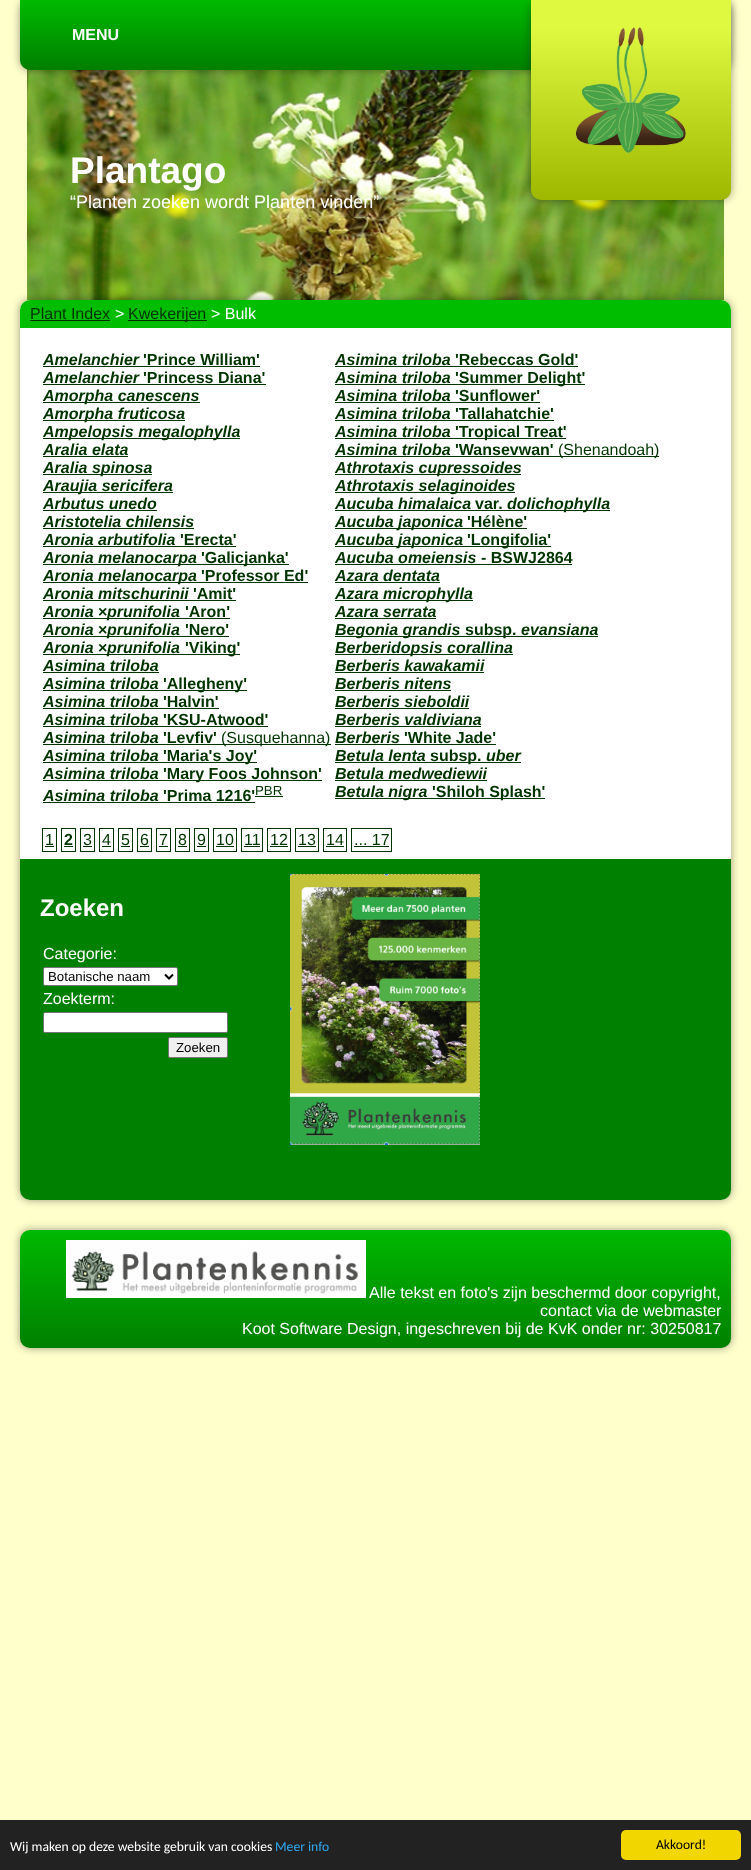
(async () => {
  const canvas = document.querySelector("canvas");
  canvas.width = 751;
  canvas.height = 1870;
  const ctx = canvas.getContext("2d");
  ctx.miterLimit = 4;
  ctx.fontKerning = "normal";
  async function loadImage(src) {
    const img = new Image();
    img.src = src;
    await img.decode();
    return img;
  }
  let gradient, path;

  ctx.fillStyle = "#ffffcc";
  ctx.fillRect(0, 0, 751, 1870);
  ctx.drawImage(await loadImage("img/2.png"), 27, 69, 697, 231);
  ctx.fillStyle = "rgba(0, 0, 0, 0.4)";
  ctx.filter = "blur(4px)";
  ctx.beginPath();
  ctx.roundRect(20, 0, 711, 70, 10);
  ctx.fill();
  ctx.filter = "none";
  gradient = ctx.createLinearGradient(376, 0, 376, 70);
  gradient.addColorStop(0, "#00ba00");
  gradient.addColorStop(1, "#007f00");
  ctx.fillStyle = gradient;
  ctx.beginPath();
  ctx.roundRect(20, 0, 711, 70, [0, 0, 10, 10]);
  ctx.fill();
  ctx.fillStyle = "rgba(0, 0, 0, 0.4)";
  ctx.filter = "blur(4px)";
  ctx.beginPath();
  ctx.roundRect(531, 0, 200, 200, 10);
  ctx.fill();
  ctx.filter = "none";
  gradient = ctx.createLinearGradient(631, 0, 631, 200);
  gradient.addColorStop(0.14, "#dff941");
  gradient.addColorStop(1, "#9eb800");
  ctx.fillStyle = gradient;
  ctx.beginPath();
  ctx.roundRect(531, 0, 200, 200, [0, 0, 10, 10]);
  ctx.fill();
  ctx.drawImage(await loadImage("img/1.png"), 575, 27, 111, 126);
  ctx.fillStyle = "rgba(0, 0, 0, 0.4)";
  ctx.filter = "blur(4px)";
  ctx.beginPath();
  ctx.roundRect(20, 300, 711, 900, 10);
  ctx.fill();
  ctx.filter = "none";
  ctx.fillStyle = "#ffffff";
  ctx.beginPath();
  ctx.roundRect(20, 300, 711, 900, 10);
  ctx.fill();
  ctx.fillStyle = "#00bd00";
  ctx.beginPath();
  ctx.roundRect(20, 300, 711, 28, [10, 10, 0, 0]);
  ctx.fill();
  for (const [x, y, w, h, color] of [
    [30, 320, 80, 1, "#003300"],
    [128, 320, 79, 1, "#003300"],
    [43, 366, 217, 1, "#003300"],
    [43, 384, 223, 1, "#003300"],
    [43, 402, 157, 1, "#003300"],
    [43, 420, 142, 1, "#003300"],
    [43, 438, 197, 1, "#003300"],
    [43, 456, 85, 1, "#003300"],
    [43, 474, 109, 1, "#003300"],
    [43, 492, 130, 1, "#003300"],
    [43, 510, 114, 1, "#003300"],
    [43, 528, 151, 1, "#003300"],
    [43, 546, 193, 1, "#003300"],
    [43, 564, 246, 1, "#003300"],
    [43, 582, 265, 1, "#003300"],
    [43, 600, 193, 1, "#003300"],
    [43, 618, 187, 1, "#003300"],
    [43, 636, 186, 1, "#003300"],
    [43, 654, 197, 1, "#003300"],
    [43, 672, 116, 1, "#003300"],
    [43, 690, 204, 1, "#003300"],
    [43, 708, 176, 1, "#003300"],
    [43, 726, 225, 1, "#003300"],
    [43, 744, 288, 1, "#003300"],
    [43, 762, 214, 1, "#003300"],
    [43, 780, 279, 1, "#003300"],
    [43, 802, 212, 1, "#003300"],
    [255, 796, 28, 1, "#003300"],
    [335, 366, 243, 1, "#003300"],
    [335, 384, 250, 1, "#003300"],
    [335, 402, 205, 1, "#003300"],
    [335, 420, 219, 1, "#003300"],
    [335, 438, 231, 1, "#003300"],
    [335, 456, 324, 1, "#003300"],
    [335, 474, 186, 1, "#003300"],
    [335, 492, 180, 1, "#003300"],
    [335, 510, 275, 1, "#003300"],
    [335, 528, 192, 1, "#003300"],
    [335, 546, 216, 1, "#003300"],
    [335, 564, 237, 1, "#003300"],
    [335, 582, 105, 1, "#003300"],
    [335, 600, 138, 1, "#003300"],
    [335, 618, 101, 1, "#003300"],
    [335, 636, 263, 1, "#003300"],
    [335, 654, 178, 1, "#003300"],
    [335, 672, 149, 1, "#003300"],
    [335, 690, 116, 1, "#003300"],
    [335, 708, 134, 1, "#003300"],
    [335, 726, 146, 1, "#003300"],
    [335, 744, 161, 1, "#003300"],
    [335, 762, 186, 1, "#003300"],
    [335, 780, 152, 1, "#003300"],
    [335, 798, 210, 1, "#003300"],
  ]) {
    ctx.fillStyle = color;
    ctx.fillRect(x, y, w, h);
  }
  ctx.strokeStyle = "#003300";
  ctx.strokeRect(42.5, 828.5, 14, 23);
  ctx.fillRect(45, 846, 9, 1);
  ctx.strokeRect(61.5, 828.5, 14, 23);
  ctx.fillRect(64, 846, 9, 1);
  ctx.strokeRect(80.5, 828.5, 14, 23);
  ctx.fillRect(83, 846, 9, 1);
  ctx.strokeRect(99.5, 828.5, 14, 23);
  ctx.fillRect(102, 846, 9, 1);
  ctx.strokeRect(118.5, 828.5, 14, 23);
  ctx.fillRect(121, 846, 9, 1);
  ctx.strokeRect(137.5, 828.5, 14, 23);
  ctx.fillRect(140, 846, 9, 1);
  ctx.strokeRect(156.5, 828.5, 14, 23);
  ctx.fillRect(159, 846, 9, 1);
  ctx.strokeRect(175.5, 828.5, 14, 23);
  ctx.fillRect(178, 846, 9, 1);
  ctx.strokeRect(194.5, 828.5, 14, 23);
  ctx.fillRect(197, 846, 9, 1);
  ctx.strokeRect(213.5, 828.5, 23, 23);
  ctx.fillRect(216, 846, 18, 1);
  ctx.strokeRect(241.5, 828.5, 21, 23);
  ctx.fillRect(244, 846, 16, 1);
  ctx.strokeRect(267.5, 828.5, 23, 23);
  ctx.fillRect(270, 846, 18, 1);
  ctx.strokeRect(295.5, 828.5, 23, 23);
  ctx.fillRect(298, 846, 18, 1);
  ctx.strokeRect(323.5, 828.5, 23, 23);
  ctx.fillRect(326, 846, 18, 1);
  ctx.strokeRect(351.5, 828.5, 40, 23);
  ctx.fillRect(354, 846, 35, 1);
  ctx.fillStyle = "#008000";
  ctx.beginPath();
  ctx.roundRect(20, 859, 711, 341, [0, 0, 10, 10]);
  ctx.fill();
  ctx.fillStyle = "#ffffff";
  ctx.beginPath();
  ctx.roundRect(43.5, 967.5, 134, 18, 1.5);
  ctx.fill();
  ctx.strokeStyle = "#767676";
  ctx.stroke();
  path = new Path2D("M165 974.5L169 978.5L173 974.5");
  ctx.strokeStyle = "#000000";
  ctx.lineWidth = 2;
  ctx.stroke(path);
  ctx.beginPath();
  ctx.roundRect(43.5, 1012.5, 184, 20, 1.5);
  ctx.fill();
  ctx.strokeStyle = "#767676";
  ctx.lineWidth = 1;
  ctx.stroke();
  ctx.fillStyle = "#efefef";
  ctx.beginPath();
  ctx.roundRect(168.5, 1037.5, 59, 20, 1.5);
  ctx.fill();
  ctx.stroke();
  ctx.drawImage(await loadImage("img/3.png"), 290, 874, 190, 271);
  ctx.fillStyle = "rgba(0, 0, 0, 0.4)";
  ctx.filter = "blur(4px)";
  ctx.beginPath();
  ctx.roundRect(20, 1230, 711, 118, 10);
  ctx.fill();
  ctx.filter = "none";
  gradient = ctx.createLinearGradient(376, 1230, 376, 1348);
  gradient.addColorStop(0, "#00b800");
  gradient.addColorStop(1, "#008000");
  ctx.fillStyle = gradient;
  ctx.beginPath();
  ctx.roundRect(20, 1230, 711, 118, 10);
  ctx.fill();
  ctx.drawImage(await loadImage("img/4.png"), 66, 1240, 300, 58);
  ctx.fillStyle = "#222222";
  ctx.fillRect(0, 1820, 751, 50);
  ctx.fillStyle = "#f1d600";
  ctx.beginPath();
  ctx.roundRect(621, 1830, 120, 30, 5);
  ctx.fill();
  ctx.font = "bold 16px Liberation Sans";
  ctx.fillStyle = "#ffffff";
  ctx.fillText("MENU", 72, 40);
  ctx.font = "bold 37px Liberation Sans";
  ctx.fillText("Plantago", 70, 183);
  ctx.font = "18px Liberation Sans";
  ctx.fillText("“Planten zoeken wordt Planten vinden”", 70, 208);
  ctx.font = "16px Liberation Sans";
  ctx.fillStyle = "#003300";
  ctx.fillText("Plant Index", 30, 319);
  ctx.fillStyle = "#ffffff";
  ctx.fillText(">", 115, 319);
  ctx.fillStyle = "#003300";
  ctx.fillText("Kwekerijen", 128, 319);
  ctx.fillStyle = "#ffffff";
  ctx.fillText("> Bulk", 211, 319);
  ctx.font = "italic bold 16px Liberation Sans";
  ctx.fillStyle = "#003300";
  ctx.fillText("Amelanchier", 43, 365);
  ctx.font = "bold 16px Liberation Sans";
  ctx.fillText("'Prince William'", 143, 365);
  ctx.font = "italic bold 16px Liberation Sans";
  ctx.fillText("Amelanchier", 43, 383);
  ctx.font = "bold 16px Liberation Sans";
  ctx.fillText("'Princess Diana'", 143, 383);
  ctx.font = "italic bold 16px Liberation Sans";
  for (const [text, x, y] of [
    ["Amorpha canescens", 43, 401],
    ["Amorpha fruticosa", 43, 419],
    ["Ampelopsis megalophylla", 43, 437],
    ["Aralia elata", 43, 455],
    ["Aralia spinosa", 43, 473],
    ["Araujia sericifera", 43, 491],
    ["Arbutus unedo", 43, 509],
    ["Aristotelia chilensis", 43, 527],
    ["Aronia arbutifolia", 43, 545],
  ]) {
    ctx.fillText(text, x, y);
  }
  ctx.font = "bold 16px Liberation Sans";
  ctx.fillText("'Erecta'", 180, 545);
  ctx.font = "italic bold 16px Liberation Sans";
  ctx.fillText("Aronia melanocarpa", 43, 563);
  ctx.font = "bold 16px Liberation Sans";
  ctx.fillText("'Galicjanka'", 201, 563);
  ctx.font = "italic bold 16px Liberation Sans";
  ctx.fillText("Aronia melanocarpa", 43, 581);
  ctx.font = "bold 16px Liberation Sans";
  ctx.fillText("'Professor Ed'", 201, 581);
  ctx.font = "italic bold 16px Liberation Sans";
  ctx.fillText("Aronia mitschurinii", 43, 599);
  ctx.font = "bold 16px Liberation Sans";
  ctx.fillText("'Amit'", 193, 599);
  ctx.font = "italic bold 16px Liberation Sans";
  ctx.fillText("Aronia", 43, 617);
  ctx.font = "bold 16px Liberation Sans";
  ctx.fillText("×", 98, 617);
  ctx.font = "italic bold 16px Liberation Sans";
  ctx.fillText("prunifolia", 107, 617);
  ctx.font = "bold 16px Liberation Sans";
  ctx.fillText("'Aron'", 185, 617);
  ctx.font = "italic bold 16px Liberation Sans";
  ctx.fillText("Aronia", 43, 635);
  ctx.font = "bold 16px Liberation Sans";
  ctx.fillText("×", 98, 635);
  ctx.font = "italic bold 16px Liberation Sans";
  ctx.fillText("prunifolia", 107, 635);
  ctx.font = "bold 16px Liberation Sans";
  ctx.fillText("'Nero'", 185, 635);
  ctx.font = "italic bold 16px Liberation Sans";
  ctx.fillText("Aronia", 43, 653);
  ctx.font = "bold 16px Liberation Sans";
  ctx.fillText("×", 98, 653);
  ctx.font = "italic bold 16px Liberation Sans";
  ctx.fillText("prunifolia", 107, 653);
  ctx.font = "bold 16px Liberation Sans";
  ctx.fillText("'Viking'", 185, 653);
  ctx.font = "italic bold 16px Liberation Sans";
  ctx.fillText("Asimina triloba", 43, 671);
  ctx.fillText("Asimina triloba", 43, 689);
  ctx.font = "bold 16px Liberation Sans";
  ctx.fillText("'Allegheny'", 163, 689);
  ctx.font = "italic bold 16px Liberation Sans";
  ctx.fillText("Asimina triloba", 43, 707);
  ctx.font = "bold 16px Liberation Sans";
  ctx.fillText("'Halvin'", 163, 707);
  ctx.font = "italic bold 16px Liberation Sans";
  ctx.fillText("Asimina triloba", 43, 725);
  ctx.font = "bold 16px Liberation Sans";
  ctx.fillText("'KSU-Atwood'", 163, 725);
  ctx.font = "italic bold 16px Liberation Sans";
  ctx.fillText("Asimina triloba", 43, 743);
  ctx.font = "bold 16px Liberation Sans";
  ctx.fillText("'Levfiv'", 163, 743);
  ctx.font = "16px Liberation Sans";
  ctx.fillText("(Susquehanna)", 221, 743);
  ctx.font = "italic bold 16px Liberation Sans";
  ctx.fillText("Asimina triloba", 43, 761);
  ctx.font = "bold 16px Liberation Sans";
  ctx.fillText("'Maria's Joy'", 163, 761);
  ctx.font = "italic bold 16px Liberation Sans";
  ctx.fillText("Asimina triloba", 43, 779);
  ctx.font = "bold 16px Liberation Sans";
  ctx.fillText("'Mary Foos Johnson'", 163, 779);
  ctx.font = "italic bold 16px Liberation Sans";
  ctx.fillText("Asimina triloba", 43, 801);
  ctx.font = "bold 16px Liberation Sans";
  ctx.fillText("'Prima 1216'", 163, 801);
  ctx.font = "13.25px Liberation Sans";
  ctx.fillText("PBR", 255, 795);
  ctx.font = "italic bold 16px Liberation Sans";
  ctx.fillText("Asimina triloba", 335, 365);
  ctx.font = "bold 16px Liberation Sans";
  ctx.fillText("'Rebeccas Gold'", 455, 365);
  ctx.font = "italic bold 16px Liberation Sans";
  ctx.fillText("Asimina triloba", 335, 383);
  ctx.font = "bold 16px Liberation Sans";
  ctx.fillText("'Summer Delight'", 455, 383);
  ctx.font = "italic bold 16px Liberation Sans";
  ctx.fillText("Asimina triloba", 335, 401);
  ctx.font = "bold 16px Liberation Sans";
  ctx.fillText("'Sunflower'", 455, 401);
  ctx.font = "italic bold 16px Liberation Sans";
  ctx.fillText("Asimina triloba", 335, 419);
  ctx.font = "bold 16px Liberation Sans";
  ctx.fillText("'Tallahatchie'", 455, 419);
  ctx.font = "italic bold 16px Liberation Sans";
  ctx.fillText("Asimina triloba", 335, 437);
  ctx.font = "bold 16px Liberation Sans";
  ctx.fillText("'Tropical Treat'", 455, 437);
  ctx.font = "italic bold 16px Liberation Sans";
  ctx.fillText("Asimina triloba", 335, 455);
  ctx.font = "bold 16px Liberation Sans";
  ctx.fillText("'Wansevwan'", 455, 455);
  ctx.font = "16px Liberation Sans";
  ctx.fillText("(Shenandoah)", 558, 455);
  ctx.font = "italic bold 16px Liberation Sans";
  for (const [text, x, y] of [
    ["Athrotaxis cupressoides", 335, 473],
    ["Athrotaxis selaginoides", 335, 491],
    ["Aucuba himalaica", 335, 509],
  ]) {
    ctx.fillText(text, x, y);
  }
  ctx.font = "bold 16px Liberation Sans";
  ctx.fillText("var.", 475, 509);
  ctx.font = "italic bold 16px Liberation Sans";
  ctx.fillText("dolichophylla", 507, 509);
  ctx.fillText("Aucuba japonica", 335, 527);
  ctx.font = "bold 16px Liberation Sans";
  ctx.fillText("'Hélène'", 467, 527);
  ctx.font = "italic bold 16px Liberation Sans";
  ctx.fillText("Aucuba japonica", 335, 545);
  ctx.font = "bold 16px Liberation Sans";
  ctx.fillText("'Longifolia'", 467, 545);
  ctx.font = "italic bold 16px Liberation Sans";
  ctx.fillText("Aucuba omeiensis", 335, 563);
  ctx.font = "bold 16px Liberation Sans";
  ctx.fillText("- BSWJ2864", 481, 563);
  ctx.font = "italic bold 16px Liberation Sans";
  for (const [text, x, y] of [
    ["Azara dentata", 335, 581],
    ["Azara microphylla", 335, 599],
    ["Azara serrata", 335, 617],
    ["Begonia grandis", 335, 635],
  ]) {
    ctx.fillText(text, x, y);
  }
  ctx.font = "bold 16px Liberation Sans";
  ctx.fillText("subsp.", 465, 635);
  ctx.font = "italic bold 16px Liberation Sans";
  for (const [text, x, y] of [
    ["evansiana", 521, 635],
    ["Berberidopsis corallina", 335, 653],
    ["Berberis kawakamii", 335, 671],
    ["Berberis nitens", 335, 689],
    ["Berberis sieboldii", 335, 707],
    ["Berberis valdiviana", 335, 725],
    ["Berberis", 335, 743],
  ]) {
    ctx.fillText(text, x, y);
  }
  ctx.font = "bold 16px Liberation Sans";
  ctx.fillText("'White Jade'", 404, 743);
  ctx.font = "italic bold 16px Liberation Sans";
  ctx.fillText("Betula lenta", 335, 761);
  ctx.font = "bold 16px Liberation Sans";
  ctx.fillText("subsp.", 430, 761);
  ctx.font = "italic bold 16px Liberation Sans";
  for (const [text, x, y] of [
    ["uber", 486, 761],
    ["Betula medwediewii", 335, 779],
    ["Betula nigra", 335, 797],
  ]) {
    ctx.fillText(text, x, y);
  }
  ctx.font = "bold 16px Liberation Sans";
  ctx.fillText("'Shiloh Splash'", 432, 797);
  ctx.font = "16px Liberation Sans";
  ctx.fillText("1", 45, 845);
  ctx.font = "bold 16px Liberation Sans";
  ctx.fillText("2", 64, 845);
  ctx.font = "16px Liberation Sans";
  for (const [text, x, y] of [
    ["3", 83, 845],
    ["4", 102, 845],
    ["5", 121, 845],
    ["6", 140, 845],
    ["7", 159, 845],
    ["8", 178, 845],
    ["9", 197, 845],
    ["10", 216, 845],
    ["11", 244, 845],
    ["12", 270, 845],
    ["13", 298, 845],
    ["14", 326, 845],
    ["... 17", 354, 845],
  ]) {
    ctx.fillText(text, x, y);
  }
  ctx.font = "bold 24px Liberation Sans";
  ctx.fillStyle = "#ffffff";
  ctx.fillText("Zoeken", 40, 916);
  ctx.font = "16px Liberation Sans";
  ctx.fillText("Categorie:", 43, 959);
  ctx.font = "13.25px Liberation Sans";
  ctx.fillStyle = "#000000";
  ctx.fillText("Botanische naam", 48, 981);
  ctx.font = "16px Liberation Sans";
  ctx.fillStyle = "#ffffff";
  ctx.fillText("Zoekterm:", 43, 1004);
  ctx.font = "13.25px Liberation Sans";
  ctx.fillStyle = "#000000";
  ctx.fillText("Zoeken", 176, 1052);
  ctx.font = "16px Liberation Sans";
  ctx.fillStyle = "#ffffff";
  for (const [text, x, y] of [
    ["Alle tekst en foto's zijn beschermd door copyright,", 369, 1298],
    ["contact via de webmaster", 540, 1316],
    ["Koot Software Design, ingeschreven bij de KvK onder nr: 30250817", 242, 1334],
  ]) {
    ctx.fillText(text, x, y);
  }
  ctx.font = "13.6px Carlito";
  ctx.fillText("Wij maken op deze website gebruik van cookies", 10, 1851);
  ctx.fillStyle = "#31a8f0";
  ctx.fillText("Meer info", 275, 1851);
  ctx.fillStyle = "#000000";
  ctx.fillText("Akkoord!", 656, 1849);
})();
